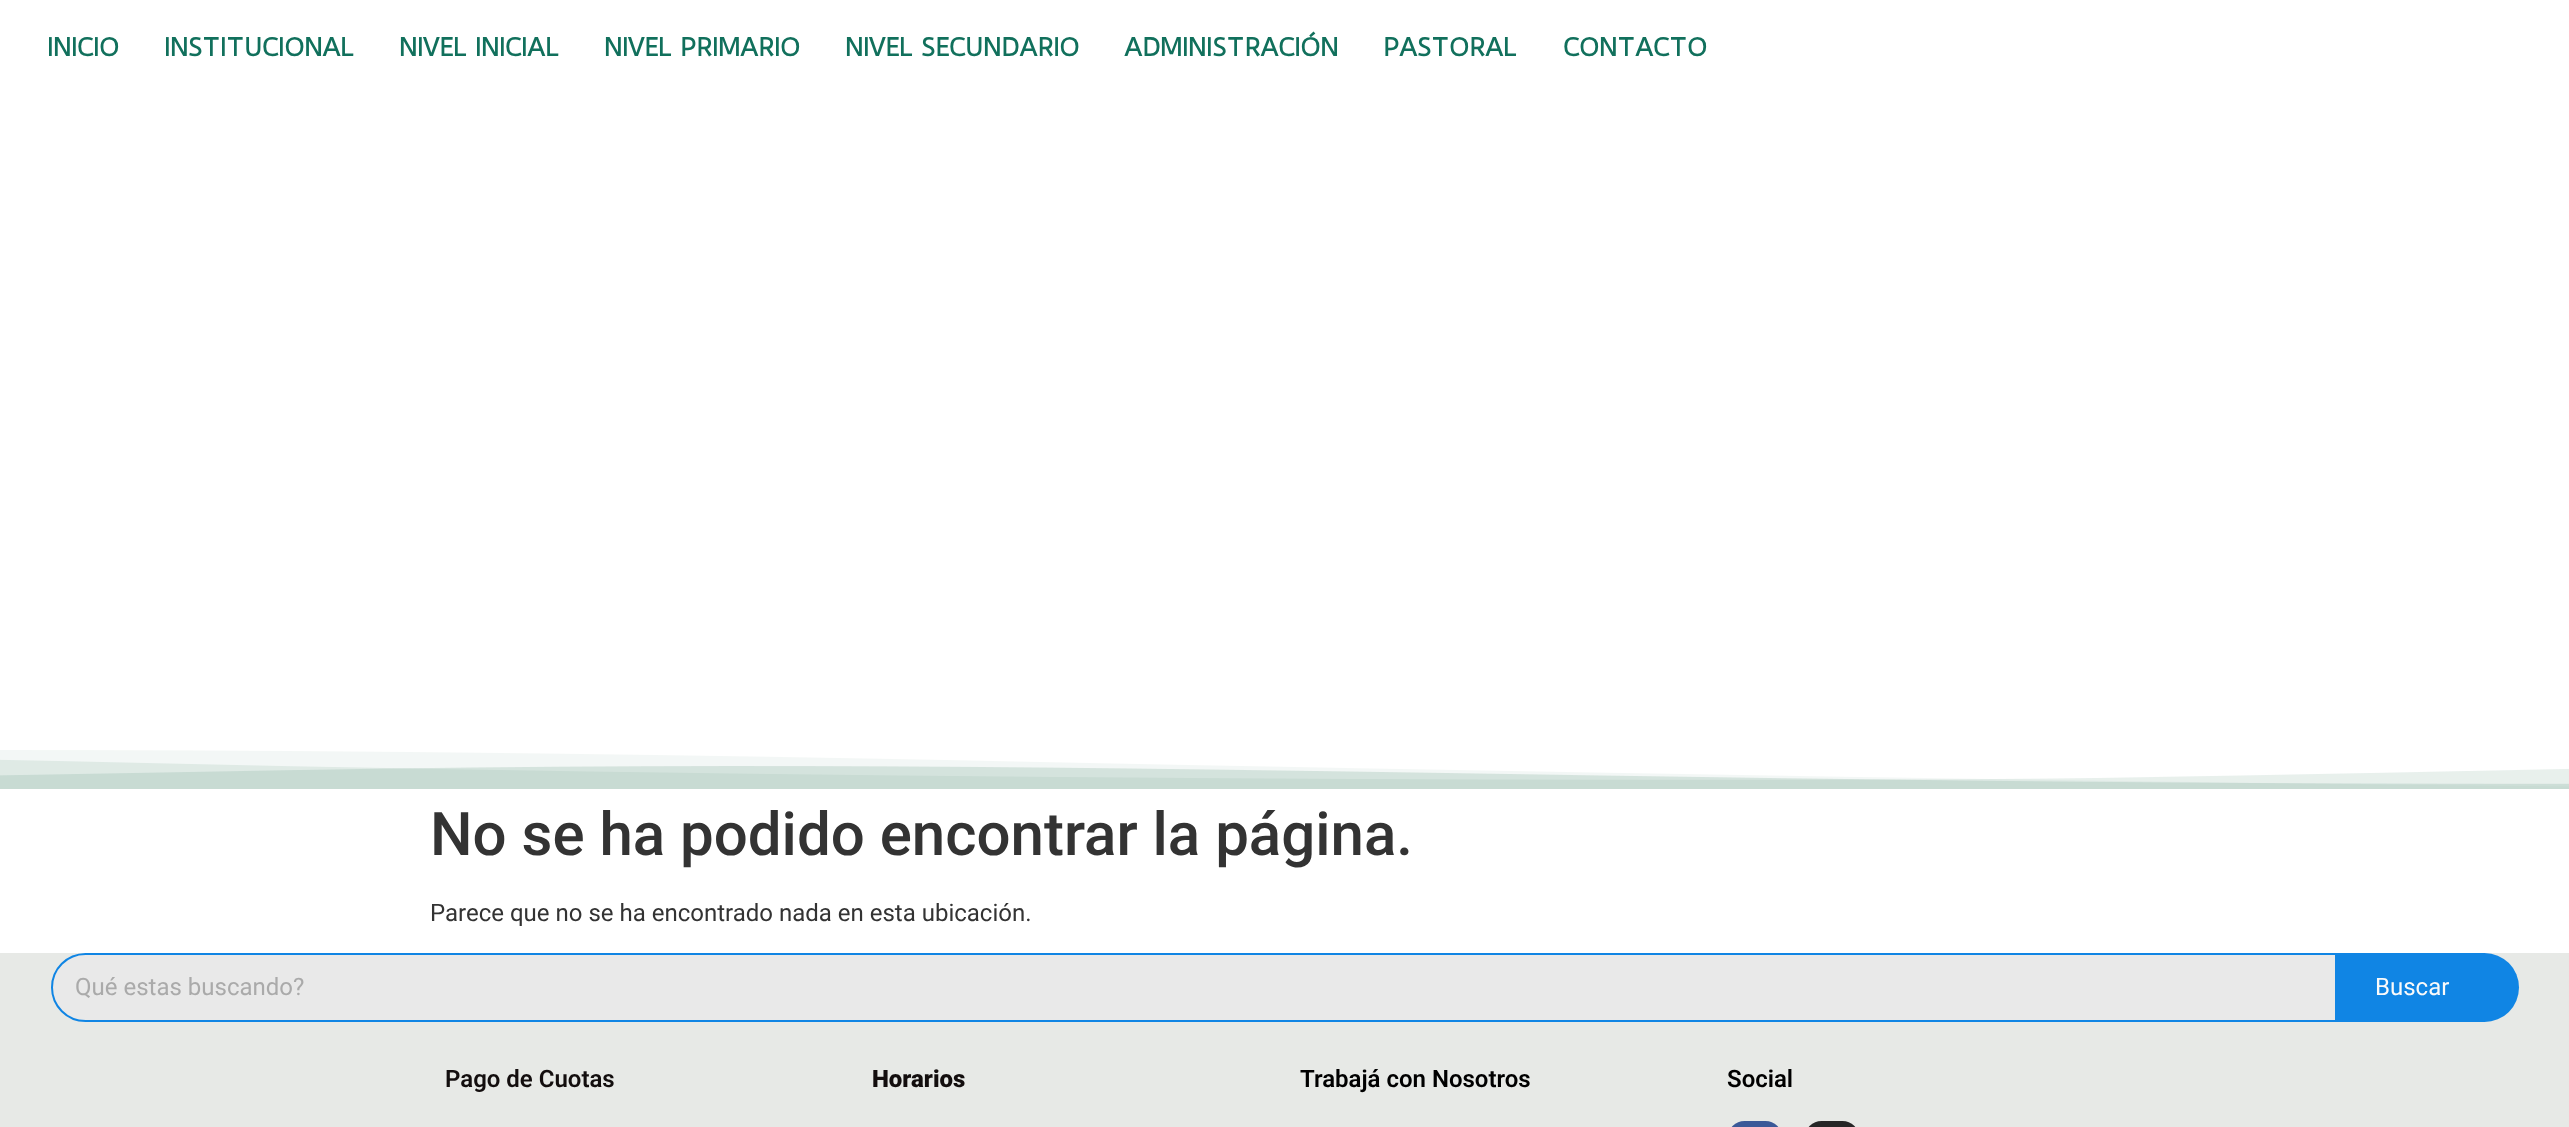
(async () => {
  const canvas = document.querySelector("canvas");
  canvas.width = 2569;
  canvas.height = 1127;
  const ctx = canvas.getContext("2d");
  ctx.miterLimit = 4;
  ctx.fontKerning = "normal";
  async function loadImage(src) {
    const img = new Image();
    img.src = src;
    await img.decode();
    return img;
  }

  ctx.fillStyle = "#ffffff";
  ctx.fillRect(0, 0, 2569, 1127);
  ctx.drawImage(await loadImage("img/1.png"), 0, 750, 2569, 39);
  ctx.fillStyle = "#e7e9e6";
  ctx.fillRect(0, 953, 2569, 174);
  ctx.fillStyle = "#e9e9e9";
  ctx.beginPath();
  ctx.roundRect(52, 954, 2284, 67, [33.5, 0, 0, 33.5]);
  ctx.fill();
  ctx.strokeStyle = "#1085e4";
  ctx.lineWidth = 2;
  ctx.stroke();
  ctx.fillStyle = "#1085e4";
  ctx.beginPath();
  ctx.roundRect(2337, 953, 182, 69, [0, 34.5, 34.5, 0]);
  ctx.fill();
  ctx.fillStyle = "#3b5998";
  ctx.beginPath();
  ctx.roundRect(1728, 1121, 54, 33, 27);
  ctx.fill();
  ctx.fillStyle = "#262626";
  ctx.beginPath();
  ctx.roundRect(1805, 1121, 54, 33, 27);
  ctx.fill();
  ctx.font = "bold 24px Duru Sans";
  ctx.fillStyle = "#11705c";
  for (const [text, x, y] of [
    ["INICIO", 47, 56],
    ["INSTITUCIONAL", 164, 56],
    ["NIVEL INICIAL", 399, 56],
    ["NIVEL PRIMARIO", 604, 56],
    ["NIVEL SECUNDARIO", 845, 56],
    ["ADMINISTRACIÓN", 1124, 56],
    ["PASTORAL", 1383, 56],
    ["CONTACTO", 1563, 56],
  ]) {
    ctx.fillText(text, x, y);
  }
  ctx.font = "500 60px Roboto";
  ctx.fillStyle = "#333333";
  ctx.fillText("No se ha podido encontrar la página.", 430, 855);
  ctx.font = "24px Roboto";
  ctx.fillText("Parece que no se ha encontrado nada en esta ubicación.", 430, 921);
  ctx.fillStyle = "#aaaaaa";
  ctx.fillText("Qué estas buscando?", 75, 995);
  ctx.fillStyle = "#fafafa";
  ctx.fillText("Buscar", 2375, 995);
  ctx.font = "600 24px Roboto";
  ctx.fillStyle = "#130e0e";
  ctx.fillText("Pago de Cuotas", 445, 1087);
  ctx.font = "900 24px Roboto";
  ctx.fillText("Horarios", 872, 1087);
  ctx.font = "600 24px Roboto";
  ctx.fillStyle = "#000000";
  ctx.fillText("Trabajá con Nosotros", 1300, 1087);
  ctx.fillText("Social", 1727, 1087);
})();
